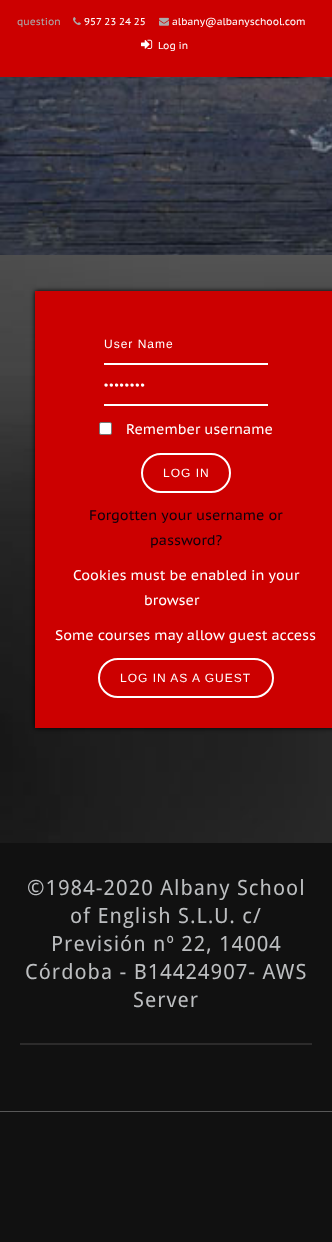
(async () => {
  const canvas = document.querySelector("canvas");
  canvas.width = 332;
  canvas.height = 1242;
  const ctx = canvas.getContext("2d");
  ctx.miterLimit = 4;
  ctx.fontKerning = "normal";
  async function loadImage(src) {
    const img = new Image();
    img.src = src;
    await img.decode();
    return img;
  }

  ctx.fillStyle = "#ffffff";
  ctx.fillRect(0, 0, 332, 1242);
  ctx.drawImage(await loadImage("img/1.png"), 0, 255, 332, 588);
  ctx.fillStyle = "#cc0000";
  ctx.fillRect(0, 0, 332, 77);
  ctx.drawImage(await loadImage("img/2.png"), 73, 17, 8, 8);
  ctx.drawImage(await loadImage("img/3.png"), 159, 17, 10, 9);
  ctx.drawImage(await loadImage("img/4.png"), 141, 39, 12, 10);
  ctx.drawImage(await loadImage("img/5.png"), 0, 77, 332, 178);
  ctx.fillStyle = "#000000";
  ctx.filter = "blur(2.5px)";
  ctx.beginPath();
  ctx.rect(35, 291, 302, 437);
  ctx.fill();
  ctx.filter = "none";
  for (const [x, y, w, h, color] of [
    [35, 291, 297, 437, "#cc0000"],
    [104, 363, 164, 2, "#ffffff"],
    [104, 404, 164, 2, "#ffffff"],
  ]) {
    ctx.fillStyle = color;
    ctx.fillRect(x, y, w, h);
  }
  ctx.beginPath();
  ctx.roundRect(99.5, 422.5, 12, 12, 1.5);
  ctx.fill();
  ctx.strokeStyle = "#767676";
  ctx.stroke();
  ctx.beginPath();
  ctx.roundRect(142, 454, 88, 38, 19);
  ctx.strokeStyle = "#ffffff";
  ctx.lineWidth = 2;
  ctx.stroke();
  ctx.beginPath();
  ctx.roundRect(99, 659, 174, 38, 19);
  ctx.stroke();
  for (const [x, y, w, h, color] of [
    [0, 843, 332, 268, "#111111"],
    [20, 1043, 292, 2, "#2c2b2b"],
    [0, 1112, 332, 130, "#111111"],
    [0, 1111, 332, 1, "#585858"],
  ]) {
    ctx.fillStyle = color;
    ctx.fillRect(x, y, w, h);
  }
  ctx.font = "10px PT Sans Caption";
  ctx.fillStyle = "#ababab";
  ctx.fillText("question", 17, 25);
  ctx.fillStyle = "#ffffff";
  for (const [text, x, y] of [
    ["957 23 24 25", 84, 25],
    ["albany@albanyschool.com", 172, 25],
    ["Log in", 158, 49],
  ]) {
    ctx.fillText(text, x, y);
  }
  ctx.letterSpacing = "1px";
  ctx.font = "12px Liberation Sans";
  ctx.fillText("User Name", 104, 348);
  ctx.fillText("••••••••", 104, 389);
  ctx.letterSpacing = "0px";
  ctx.font = "14px PT Sans Caption";
  ctx.fillText("Remember username", 126, 434);
  ctx.letterSpacing = "1px";
  ctx.font = "12px Liberation Sans";
  ctx.fillText("LOG IN", 163, 477);
  ctx.letterSpacing = "0px";
  ctx.font = "14px PT Sans Caption";
  ctx.fillStyle = "#0f000c";
  ctx.fillText("Forgotten your username or", 89, 520);
  ctx.fillText("password?", 150, 545);
  ctx.fillStyle = "#ffffff";
  for (const [text, x, y] of [
    ["Cookies must be enabled in your", 73, 580],
    ["browser", 144, 605],
    ["Some courses may allow guest access", 55, 640],
  ]) {
    ctx.fillText(text, x, y);
  }
  ctx.letterSpacing = "1px";
  ctx.font = "12px Liberation Sans";
  ctx.fillText("LOG IN AS A GUEST", 120, 682);
  ctx.font = "21px Droid Sans";
  ctx.fillStyle = "#bcbec0";
  for (const [text, x, y] of [
    ["©1984-2020 Albany School", 27, 895],
    ["of English S.L.U. c/", 70, 923],
    ["Previsión nº 22, 14004", 51, 951],
    ["Córdoba - B14424907- AWS", 25, 979],
    ["Server", 133, 1007],
  ]) {
    ctx.fillText(text, x, y);
  }
})();
